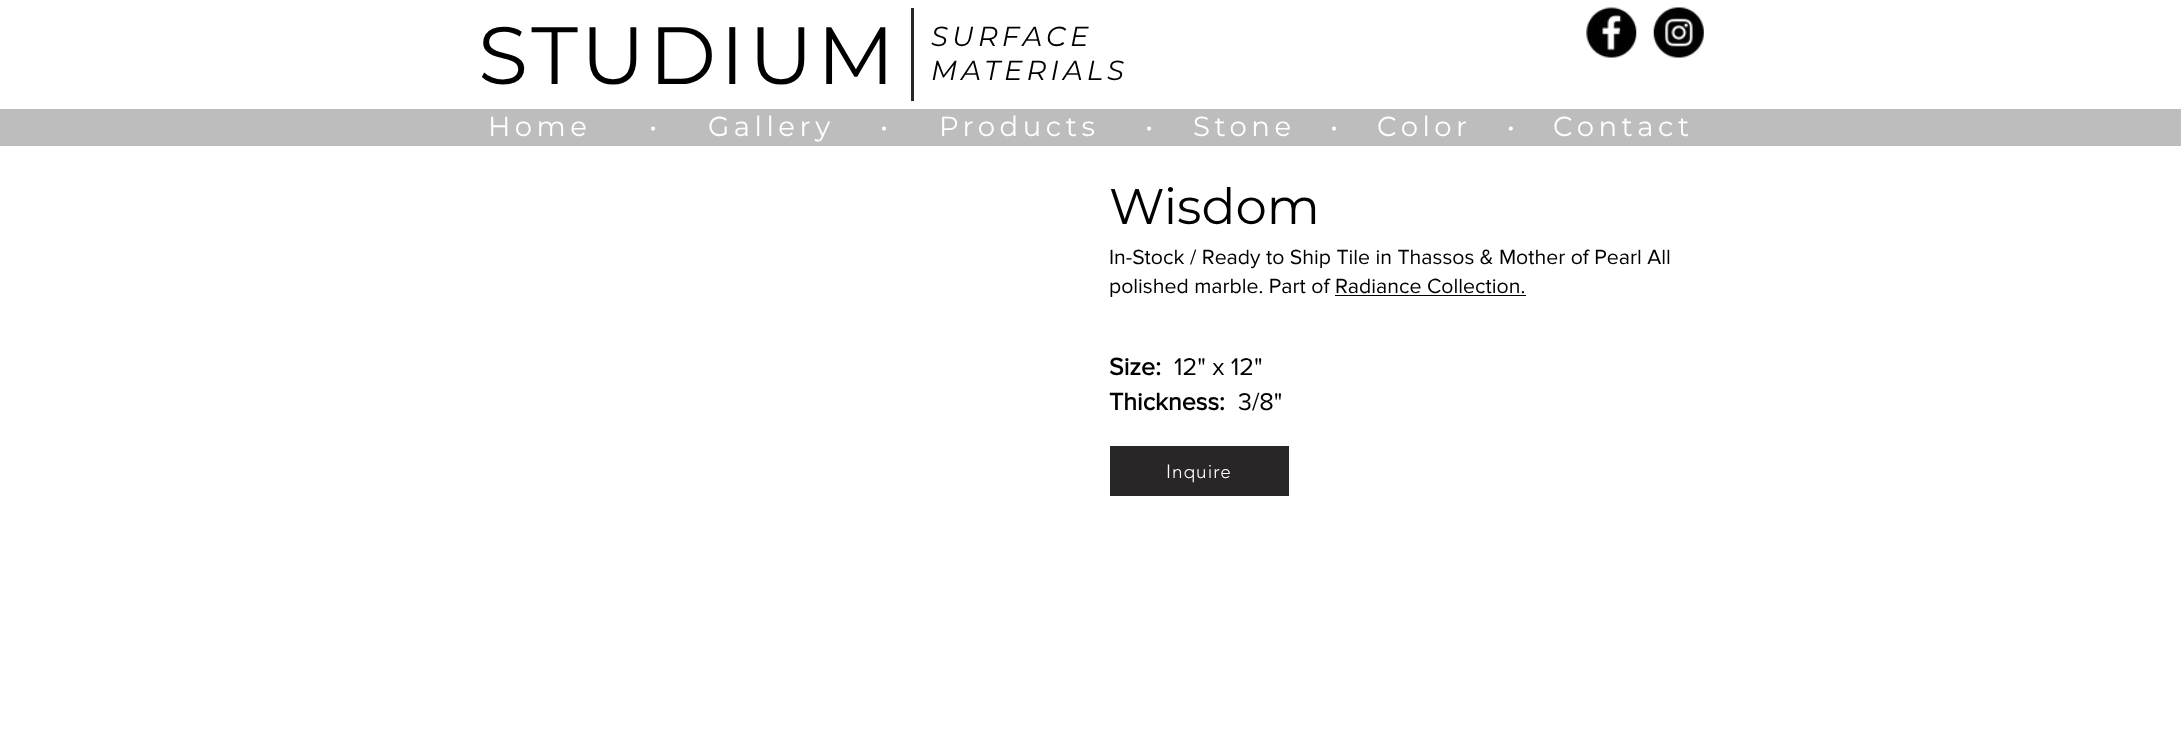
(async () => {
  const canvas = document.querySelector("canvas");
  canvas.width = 2181;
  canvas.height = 739;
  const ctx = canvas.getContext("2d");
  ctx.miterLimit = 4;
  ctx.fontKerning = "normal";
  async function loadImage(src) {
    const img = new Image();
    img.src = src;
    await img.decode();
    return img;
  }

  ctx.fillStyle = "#ffffff";
  ctx.fillRect(0, 0, 2181, 739);
  ctx.fillStyle = "#282626";
  ctx.fillRect(911, 8, 3, 93);
  ctx.drawImage(await loadImage("img/1.png"), 1586, 7, 51, 51);
  ctx.drawImage(await loadImage("img/2.png"), 1653, 7, 51, 51);
  for (const [x, y, w, h, color] of [
    [0, 109, 2181, 37, "#bdbdbd"],
    [1335, 295, 191, 1, "#000000"],
    [1110, 446, 179, 50, "#282626"],
  ]) {
    ctx.fillStyle = color;
    ctx.fillRect(x, y, w, h);
  }
  ctx.letterSpacing = "4px";
  ctx.font = "81.25px Montserrat";
  ctx.fillStyle = "#000000";
  ctx.fillText("STUDIUM", 478, 84);
  ctx.letterSpacing = "4.1px";
  ctx.font = "italic 27.5px Montserrat";
  ctx.fillText("SURFACE", 931, 46);
  ctx.fillText("MATERIALS", 931, 80);
  ctx.letterSpacing = "4.5px";
  ctx.font = "27.5px Montserrat";
  ctx.fillStyle = "#ffffff";
  for (const [text, x, y] of [
    ["Home", 488, 136],
    ["•", 649, 136],
    ["Gallery", 708, 136],
    ["•", 880, 136],
    ["Products", 939, 136],
    ["•", 1145, 136],
    ["Stone", 1193, 136],
    ["•", 1330, 136],
    ["Color   •", 1377, 136],
    ["Contact", 1553, 136],
  ]) {
    ctx.fillText(text, x, y);
  }
  ctx.letterSpacing = "0px";
  ctx.font = "50px Montserrat";
  ctx.fillStyle = "#000000";
  ctx.fillText("Wisdom", 1109, 224);
  ctx.font = "21.25px 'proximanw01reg'";
  ctx.fillText("In-Stock / Ready to Ship Tile in Thassos & Mother of Pearl All", 1109, 264);
  ctx.fillText("polished marble. Part of Radiance Collection.", 1109, 293);
  ctx.font = "bold 25px 'proximanw01reg'";
  ctx.fillText("Size:", 1109, 375);
  ctx.font = "25px 'proximanw01reg'";
  ctx.fillText("12\" x 12\"", 1174, 375);
  ctx.font = "bold 25px 'proximanw01reg'";
  ctx.fillText("Thickness:", 1109, 410);
  ctx.font = "25px 'proximanw01reg'";
  ctx.fillText("3/8\"", 1238, 410);
  ctx.letterSpacing = "1px";
  ctx.font = "300 19px 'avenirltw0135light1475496'";
  ctx.fillStyle = "#ffffff";
  ctx.fillText("Inquire", 1166, 478);
})();
